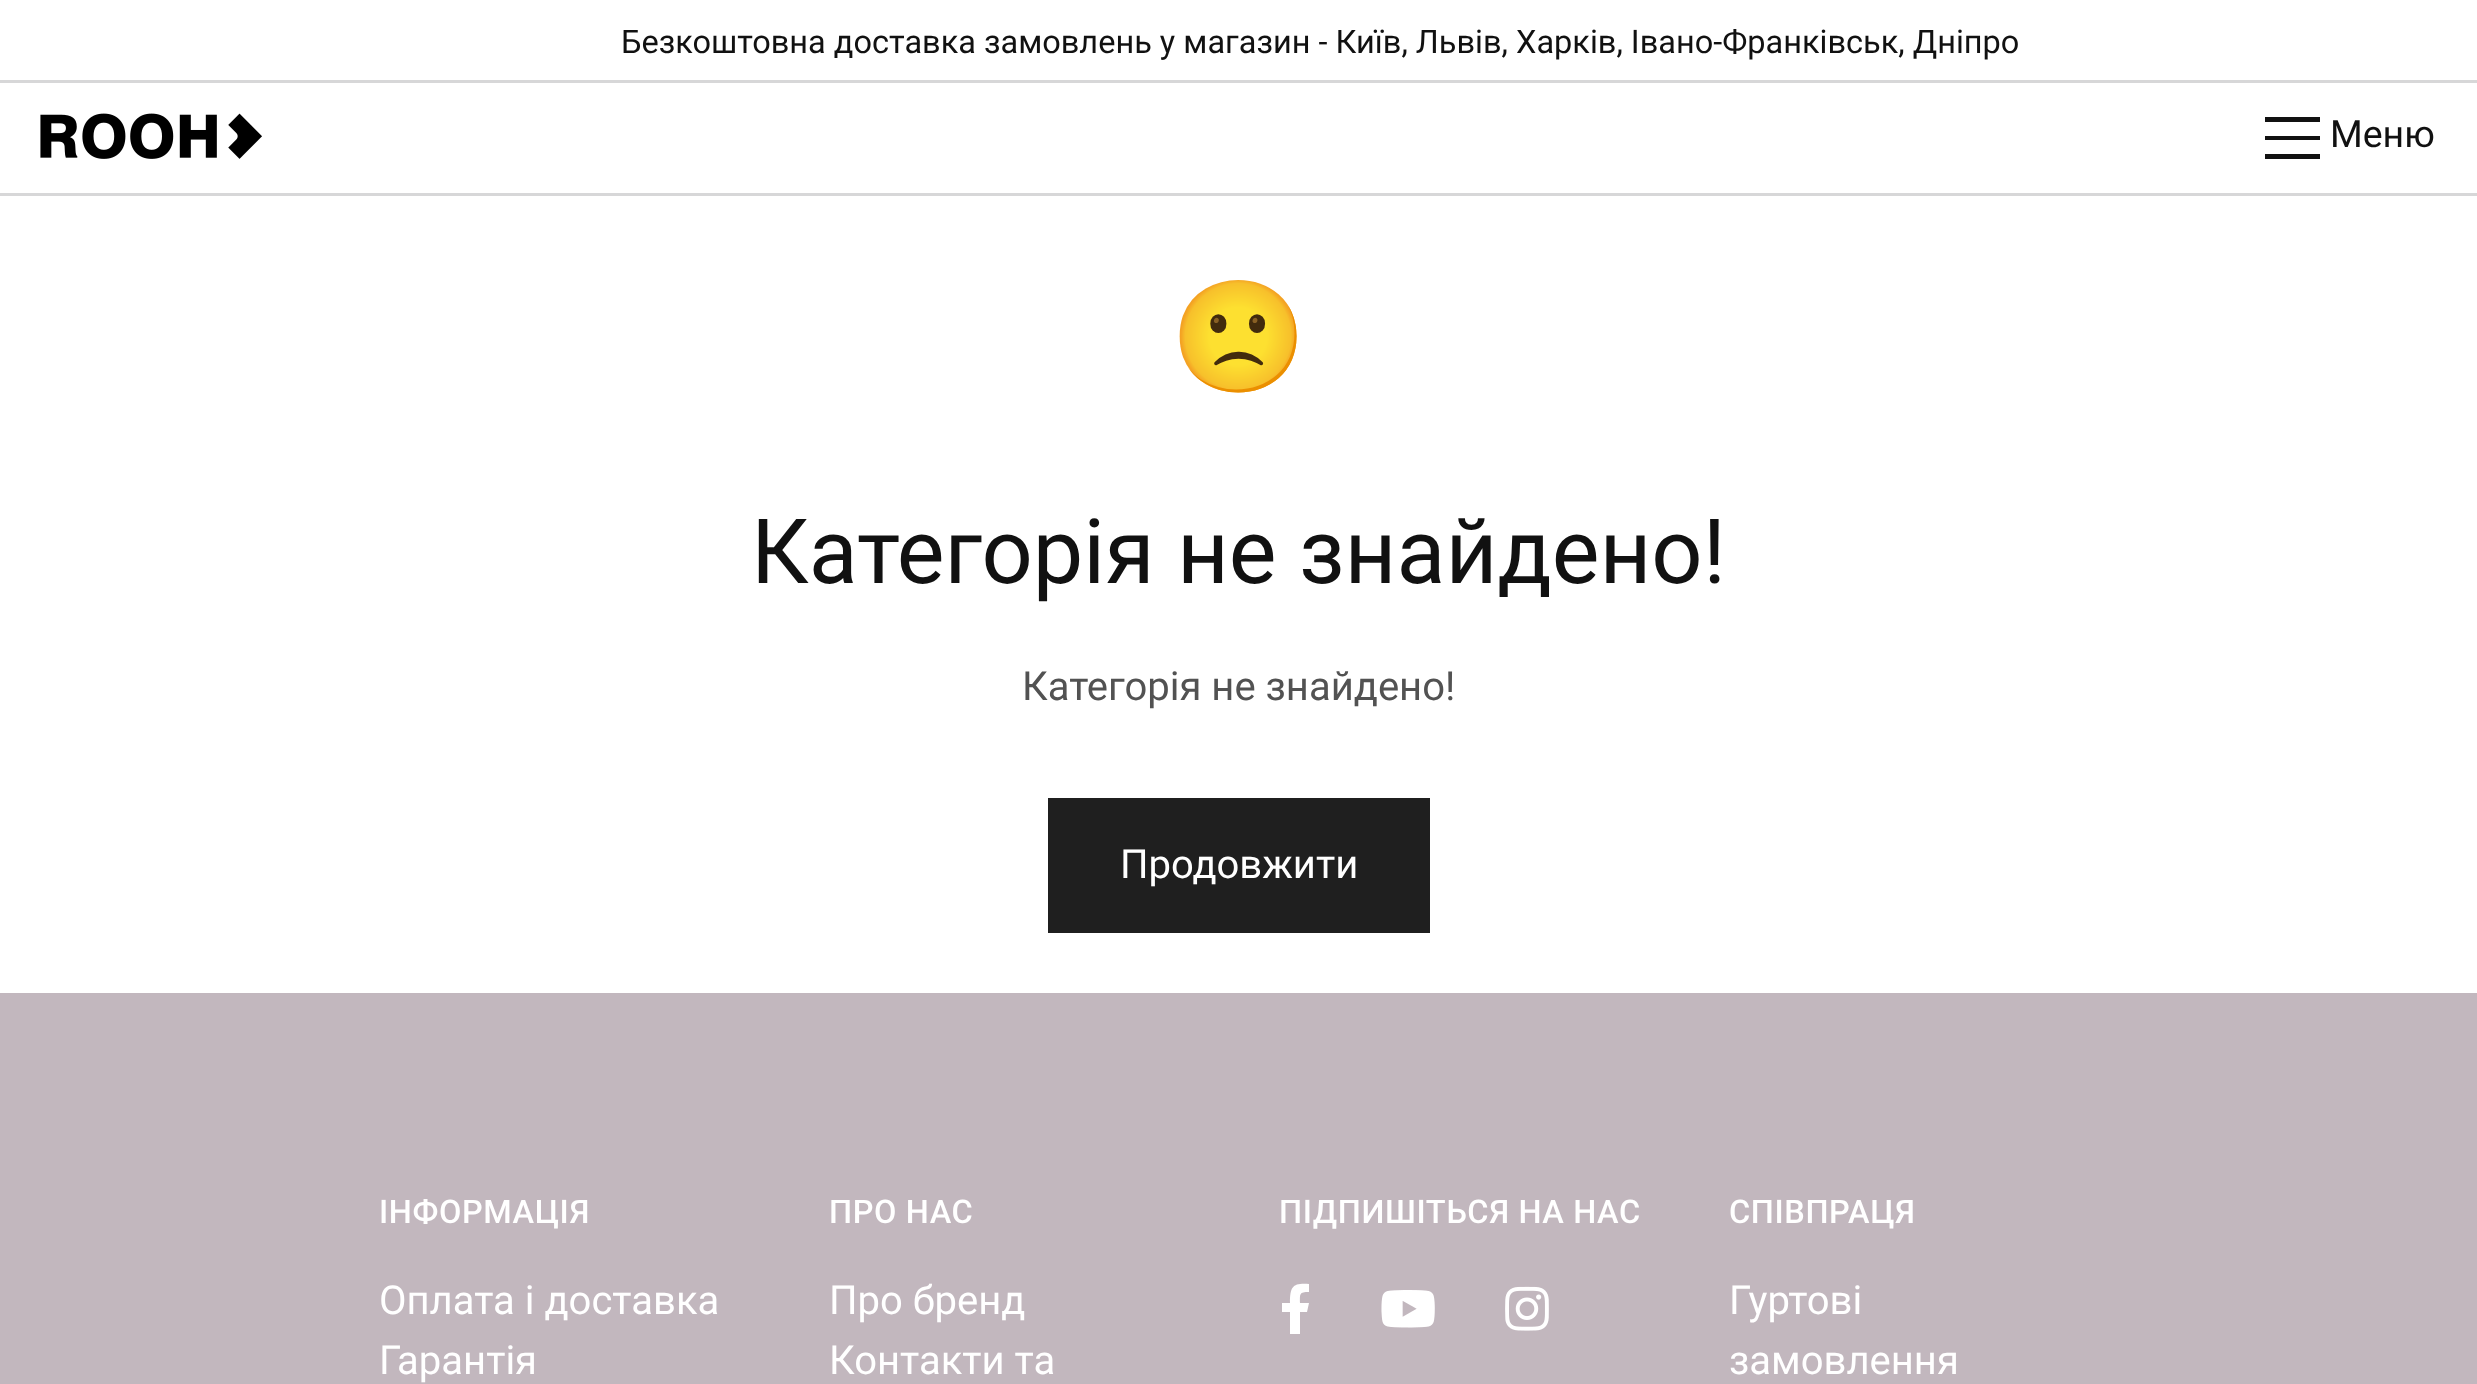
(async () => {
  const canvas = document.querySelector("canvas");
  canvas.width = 2477;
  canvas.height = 1384;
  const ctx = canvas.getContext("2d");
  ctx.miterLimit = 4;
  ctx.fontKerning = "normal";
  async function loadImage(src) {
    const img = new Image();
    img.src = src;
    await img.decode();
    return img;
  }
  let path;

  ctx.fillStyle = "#ffffff";
  ctx.fillRect(0, 0, 2477, 1384);
  ctx.fillStyle = "#d7d7d8";
  ctx.fillRect(0, 80, 2477, 3);
  ctx.fillRect(0, 193, 2477, 3);
  ctx.drawImage(await loadImage("img/1.png"), 40, 113, 222, 46);
  for (const [x, y, w, h, color] of [
    [2265, 117, 55, 5, "#111111"],
    [2265, 136, 55, 4, "#111111"],
    [2265, 154, 55, 5, "#111111"],
    [1048, 798, 382, 135, "#1f1f1f"],
    [0, 993, 2477, 391, "#c2b7be"],
  ]) {
    ctx.fillStyle = color;
    ctx.fillRect(x, y, w, h);
  }
  ctx.fillStyle = "#ffffff";
  path = new Path2D("M1307 1312H1300V1334H1290V1312H1282V1303H1290C1290 1286 1293 1283 1309 1284V1292C1299 1292 1300 1294 1300 1303H1309Z");
  ctx.fill(path);
  ctx.drawImage(await loadImage("img/2.png"), 1381, 1290, 54, 38);
  ctx.drawImage(await loadImage("img/3.png"), 1505, 1286, 44, 45);
  ctx.font = "32.5px Roboto";
  ctx.fillStyle = "#111111";
  ctx.fillText("Безкоштовна доставка замовлень у магазин - Київ, Львів, Харків, Івано-Франківськ, Дніпро", 621, 53);
  ctx.font = "37.5px Roboto";
  ctx.fillText("Меню", 2330, 147);
  ctx.font = "110px Noto Color Emoji";
  ctx.fillText("🙁", 1170, 375);
  ctx.font = "90px Roboto";
  ctx.fillText("Категорія не знайдено!", 751, 583);
  ctx.font = "40px Roboto";
  ctx.fillStyle = "#525252";
  ctx.fillText("Категорія не знайдено!", 1022, 700);
  ctx.fillStyle = "#ffffff";
  ctx.fillText("Продовжити", 1120, 878);
  ctx.letterSpacing = "0.6px";
  ctx.font = "500 32.5px Roboto";
  ctx.fillText("ІНФОРМАЦІЯ", 379, 1223);
  ctx.letterSpacing = "0px";
  ctx.font = "40px Roboto";
  ctx.fillText("Оплата і доставка", 379, 1314);
  ctx.fillText("Гарантія", 379, 1374);
  ctx.letterSpacing = "0.6px";
  ctx.font = "500 32.5px Roboto";
  ctx.fillText("ПРО НАС", 829, 1223);
  ctx.letterSpacing = "0px";
  ctx.font = "40px Roboto";
  ctx.fillText("Про бренд", 829, 1314);
  ctx.fillText("Контакти та", 829, 1374);
  ctx.letterSpacing = "0.6px";
  ctx.font = "500 32.5px Roboto";
  ctx.fillText("ПІДПИШІТЬСЯ НА НАС", 1279, 1223);
  ctx.fillText("СПІВПРАЦЯ", 1729, 1223);
  ctx.letterSpacing = "0px";
  ctx.font = "40px Roboto";
  ctx.fillText("Гуртові", 1729, 1314);
  ctx.fillText("замовлення", 1729, 1374);
})();
